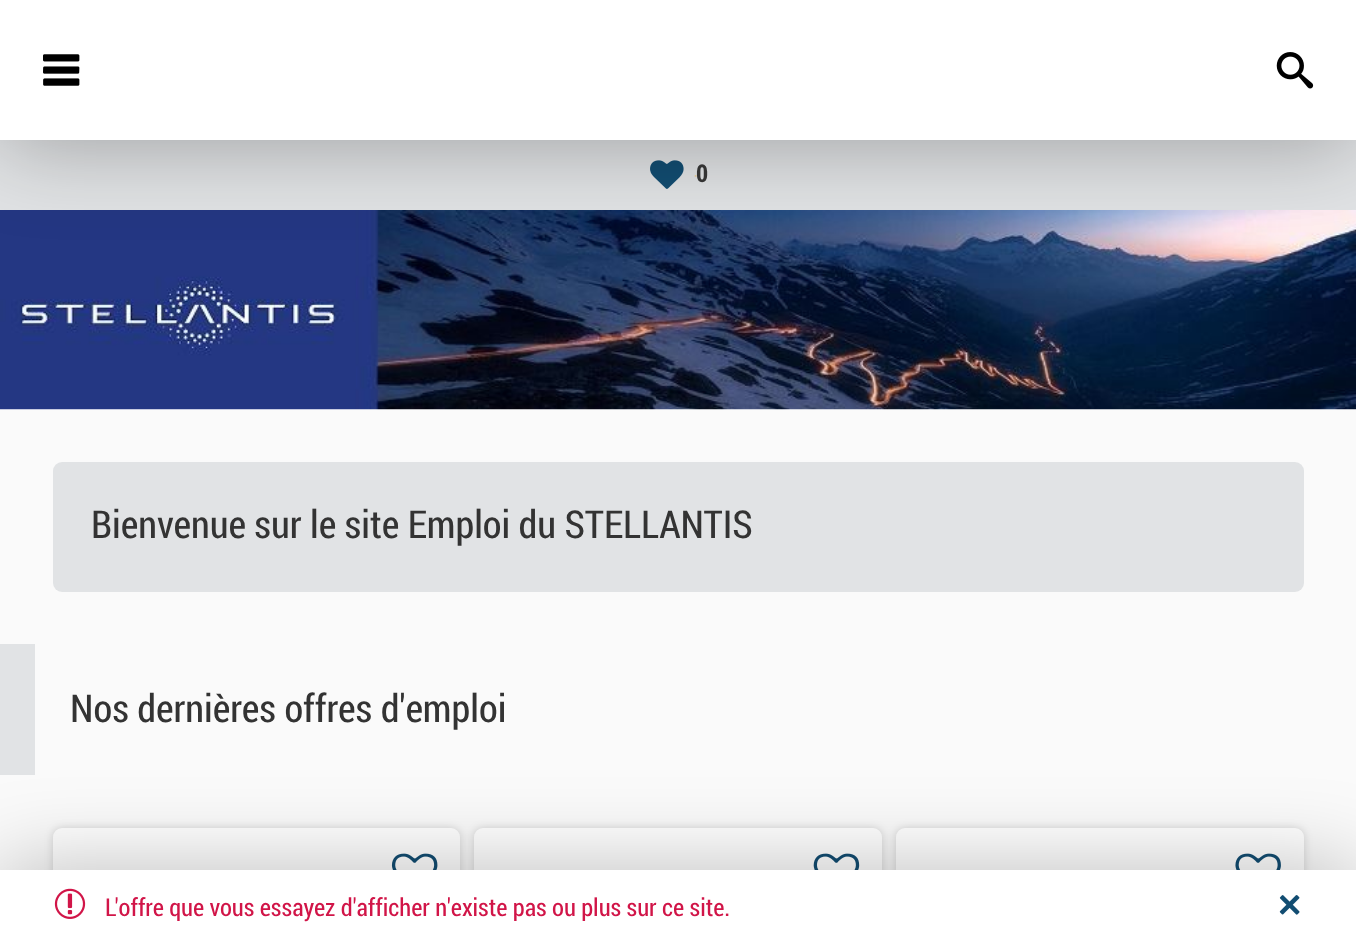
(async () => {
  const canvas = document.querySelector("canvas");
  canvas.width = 1356;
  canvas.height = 943;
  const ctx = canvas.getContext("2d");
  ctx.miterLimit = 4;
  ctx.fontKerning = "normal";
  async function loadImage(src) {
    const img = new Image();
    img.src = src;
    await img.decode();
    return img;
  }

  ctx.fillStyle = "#ffffff";
  ctx.fillRect(0, 0, 1356, 943);
  ctx.fillStyle = "#e1e3e5";
  ctx.fillRect(0, 140, 1356, 70);
  ctx.drawImage(await loadImage("img/3.png"), 650, 160, 34, 29);
  ctx.drawImage(await loadImage("img/4.png"), 694, 175, 3, 2);
  ctx.drawImage(await loadImage("img/5.png"), 0, 210, 1356, 200);
  ctx.fillStyle = "rgba(0, 0, 0, 0.3)";
  ctx.filter = "blur(44px)";
  ctx.beginPath();
  ctx.rect(0, 4, 1356, 140);
  ctx.fill();
  ctx.filter = "none";
  ctx.fillStyle = "#ffffff";
  ctx.fillRect(0, 0, 1356, 140);
  ctx.drawImage(await loadImage("img/1.png"), 43, 54, 37, 32);
  ctx.drawImage(await loadImage("img/2.png"), 1276, 52, 38, 37);
  ctx.fillStyle = "#fafafa";
  ctx.fillRect(0, 410, 1356, 460);
  ctx.fillStyle = "#e1e3e5";
  ctx.beginPath();
  ctx.roundRect(53, 462, 1251, 130, 9);
  ctx.fill();
  ctx.fillRect(0, 644, 35, 131);
  ctx.fillStyle = "rgba(0, 0, 0, 0.15)";
  ctx.filter = "blur(4.5px)";
  ctx.beginPath();
  ctx.roundRect(53, 828, 407, 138, 9);
  ctx.fill();
  ctx.filter = "none";
  ctx.fillStyle = "#ffffff";
  ctx.beginPath();
  ctx.roundRect(54, 829, 405, 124, 8);
  ctx.fill();
  ctx.strokeStyle = "#ffffff";
  ctx.lineWidth = 2;
  ctx.stroke();
  ctx.drawImage(await loadImage("img/6.png"), 391, 853, 47, 17);
  ctx.fillStyle = "rgba(0, 0, 0, 0.15)";
  ctx.filter = "blur(4.5px)";
  ctx.beginPath();
  ctx.roundRect(474, 828, 408, 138, 9);
  ctx.fill();
  ctx.filter = "none";
  ctx.fillStyle = "#ffffff";
  ctx.beginPath();
  ctx.roundRect(475, 829, 406, 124, 8);
  ctx.fill();
  ctx.stroke();
  ctx.drawImage(await loadImage("img/7.png"), 813, 853, 47, 17);
  ctx.fillStyle = "rgba(0, 0, 0, 0.15)";
  ctx.filter = "blur(4.5px)";
  ctx.beginPath();
  ctx.roundRect(896, 828, 408, 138, 9);
  ctx.fill();
  ctx.filter = "none";
  ctx.fillStyle = "#ffffff";
  ctx.beginPath();
  ctx.roundRect(897, 829, 406, 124, 8);
  ctx.fill();
  ctx.stroke();
  ctx.drawImage(await loadImage("img/8.png"), 1235, 853, 46, 17);
  ctx.fillStyle = "rgba(0, 0, 0, 0.3)";
  ctx.filter = "blur(44px)";
  ctx.beginPath();
  ctx.rect(0, 873, 1356, 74);
  ctx.fill();
  ctx.filter = "none";
  ctx.fillStyle = "#ffffff";
  ctx.fillRect(0, 870, 1356, 73);
  ctx.drawImage(await loadImage("img/9.png"), 54, 888, 32, 31);
  ctx.drawImage(await loadImage("img/10.png"), 1279, 895, 21, 20);
  ctx.font = "bold 24.5px Roboto Condensed";
  ctx.fillStyle = "#333333";
  ctx.fillText("0", 696, 182);
  ctx.font = "38.5px Roboto Condensed";
  ctx.fillText("Bienvenue sur le site Emploi du STELLANTIS", 91, 538);
  ctx.fillText("Nos dernières offres d'emploi", 70, 722);
  ctx.font = "24.5px Roboto Condensed";
  ctx.fillStyle = "#d11548";
  ctx.fillText("L'offre que vous essayez d'afficher n'existe pas ou plus sur ce site.", 105, 916);
})();
